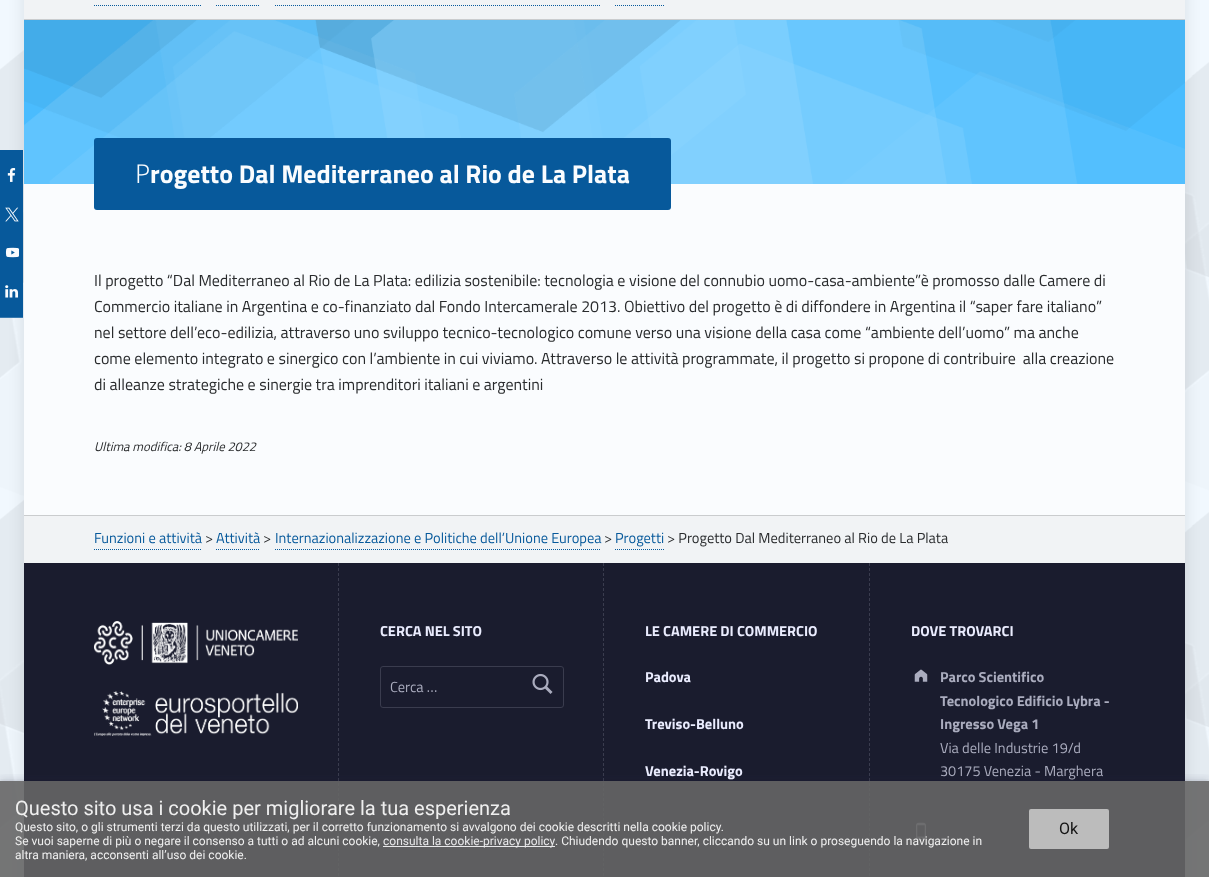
(async () => {
  const canvas = document.querySelector("canvas");
  canvas.width = 1209;
  canvas.height = 877;
  const ctx = canvas.getContext("2d");
  ctx.miterLimit = 4;
  ctx.fontKerning = "normal";
  async function loadImage(src) {
    const img = new Image();
    img.src = src;
    await img.decode();
    return img;
  }
  let path;

  ctx.fillStyle = "#f1f8fe";
  ctx.fillRect(0, 0, 1209, 877);
  ctx.drawImage(await loadImage("img/1.png"), 0, 50, 1209, 790);
  ctx.fillStyle = "rgba(0, 0, 0, 0.1)";
  ctx.filter = "blur(8px)";
  ctx.beginPath();
  ctx.rect(24, -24, 1161, 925);
  ctx.fill();
  ctx.filter = "none";
  for (const [x, y, w, h, color] of [
    [24, 184, 1161, 331, "#fafcfe"],
    [24, 0, 1161, 19, "#f1f3f5"],
    [24, 19, 1161, 1, "#caccce"],
  ]) {
    ctx.fillStyle = color;
    ctx.fillRect(x, y, w, h);
  }
  path = new Path2D("M94 5.5H202");
  ctx.strokeStyle = "#07599b";
  ctx.setLineDash([1, 1]);
  ctx.stroke(path);
  path = new Path2D("M216 5.5H260");
  ctx.stroke(path);
  path = new Path2D("M275 5.5H601");
  ctx.stroke(path);
  path = new Path2D("M615 5.5H664");
  ctx.stroke(path);
  ctx.fillStyle = "#07599b";
  ctx.fillRect(0, 150, 23, 167);
  ctx.fillStyle = "#387aaf";
  ctx.fillRect(0, 317, 23, 1);
  ctx.drawImage(await loadImage("img/2.png"), 7, 168, 9, 14);
  ctx.drawImage(await loadImage("img/3.png"), 5, 207, 14, 15);
  ctx.drawImage(await loadImage("img/4.png"), 5, 247, 14, 11);
  ctx.drawImage(await loadImage("img/5.png"), 5, 285, 14, 13);
  ctx.fillStyle = "#4abcfe";
  ctx.fillRect(24, 20, 1161, 164);
  ctx.drawImage(await loadImage("img/6.png"), 24, 20, 1161, 164);
  ctx.fillStyle = "#07599b";
  ctx.beginPath();
  ctx.roundRect(94, 138, 577, 72, 3);
  ctx.fill();
  ctx.fillStyle = "#f1f3f5";
  ctx.fillRect(24, 516, 1161, 47);
  ctx.fillStyle = "#caccce";
  ctx.fillRect(24, 515, 1161, 1);
  path = new Path2D("M94 549.5H202");
  ctx.stroke(path);
  path = new Path2D("M216 549.5H260");
  ctx.stroke(path);
  path = new Path2D("M275 549.5H601");
  ctx.stroke(path);
  path = new Path2D("M615 549.5H664");
  ctx.stroke(path);
  ctx.fillStyle = "#1a1c2e";
  ctx.fillRect(24, 563, 1161, 314);
  ctx.drawImage(await loadImage("img/7.png"), 94, 621, 204, 44);
  ctx.drawImage(await loadImage("img/8.png"), 94, 691, 204, 45);
  path = new Path2D("M338.5 563V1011");
  ctx.strokeStyle = "#3a3c4e";
  ctx.setLineDash([3, 2]);
  ctx.stroke(path);
  path = new Path2D("M603.5 563V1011");
  ctx.stroke(path);
  ctx.beginPath();
  ctx.roundRect(380.5, 666.5, 183, 41, 2.5);
  ctx.setLineDash([]);
  ctx.stroke();
  ctx.drawImage(await loadImage("img/9.png"), 532, 673, 21, 21);
  path = new Path2D("M869.5 563V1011");
  ctx.setLineDash([3, 2]);
  ctx.stroke(path);
  ctx.drawImage(await loadImage("img/10.png"), 914, 669, 14, 13);
  ctx.drawImage(await loadImage("img/11.png"), 916, 822, 10, 19);
  ctx.save();
  ctx.beginPath();
  ctx.rect(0, 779, 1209, 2);
  ctx.clip();
  ctx.fillStyle = "rgba(0, 0, 0, 0.07)";
  ctx.filter = "blur(1.5px)";
  ctx.beginPath();
  ctx.rect(0, 780, 1209, 96);
  ctx.fill();
  ctx.filter = "none";
  ctx.restore();
  ctx.save();
  ctx.beginPath();
  ctx.rect(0, 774, 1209, 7);
  ctx.clip();
  ctx.fillStyle = "rgba(50, 50, 93, 0.1)";
  ctx.filter = "blur(3px)";
  ctx.beginPath();
  ctx.rect(0, 777, 1209, 96);
  ctx.fill();
  ctx.filter = "none";
  ctx.restore();
  ctx.fillStyle = "rgba(102, 102, 102, 0.9)";
  ctx.fillRect(0, 781, 1209, 96);
  ctx.fillStyle = "#e8e8ea";
  ctx.fillRect(383, 846, 172, 1);
  ctx.fillStyle = "rgba(199, 199, 199, 0.9)";
  ctx.beginPath();
  ctx.roundRect(1029, 809, 80, 40, 2);
  ctx.fill();
  ctx.font = "300 25.9px Noto Sans";
  ctx.fillStyle = "#fafcfe";
  ctx.fillText("P", 135, 183);
  ctx.font = "bold 25.9px Titillium Web";
  ctx.fillText("rogetto Dal Mediterraneo al Rio de La Plata", 150, 183);
  ctx.font = "16px Titillium Web";
  ctx.fillStyle = "#292b2d";
  for (const [text, x, y] of [
    ["Il progetto “Dal Mediterraneo al Rio de La Plata: edilizia sostenibile: tecnologia e visione del connubio uomo-casa-ambiente”è promosso dalle Camere di", 94, 286],
    ["Commercio italiane in Argentina e co-finanziato dal Fondo Intercamerale 2013. Obiettivo del progetto è di diffondere in Argentina il “saper fare italiano”", 94, 312],
    ["nel settore dell’eco-edilizia, attraverso uno sviluppo tecnico-tecnologico comune verso una visione della casa come “ambiente dell’uomo” ma anche", 94, 338],
    ["come elemento integrato e sinergico con l’ambiente in cui viviamo. Attraverso le attività programmate, il progetto si propone di contribuire  alla creazione", 94, 364],
    ["di alleanze strategiche e sinergie tra imprenditori italiani e argentini", 94, 390],
  ]) {
    ctx.fillText(text, x, y);
  }
  ctx.font = "italic 12.75px Titillium Web";
  ctx.fillText("Ultima modifica: 8 Aprile 2022", 94, 451);
  ctx.font = "14.5px Titillium Web";
  ctx.fillStyle = "#07599b";
  ctx.fillText("Funzioni e attività", 94, 543);
  ctx.fillStyle = "#292b2d";
  ctx.fillText(">", 205, 543);
  ctx.fillStyle = "#07599b";
  ctx.fillText("Attività", 216, 543);
  ctx.fillStyle = "#292b2d";
  ctx.fillText(">", 263, 543);
  ctx.fillStyle = "#07599b";
  ctx.fillText("Internazionalizzazione e Politiche dell’Unione Europea", 275, 543);
  ctx.fillStyle = "#292b2d";
  ctx.fillText(">", 604, 543);
  ctx.fillStyle = "#07599b";
  ctx.fillText("Progetti", 615, 543);
  ctx.fillStyle = "#292b2d";
  ctx.fillText("> Progetto Dal Mediterraneo al Rio de La Plata", 667, 543);
  ctx.font = "bold 14.5px Titillium Web";
  ctx.fillStyle = "#eaecfe";
  ctx.fillText("CERCA NEL SITO", 380, 636);
  ctx.font = "14.5px Titillium Web";
  ctx.fillStyle = "#aaacbe";
  ctx.fillText("Cerca …", 390, 692);
  ctx.font = "bold 14.5px Titillium Web";
  ctx.fillStyle = "#eaecfe";
  for (const [text, x, y] of [
    ["LE CAMERE DI COMMERCIO", 645, 636],
    ["Padova", 645, 682],
    ["Treviso-Belluno", 645, 729],
    ["Venezia-Rovigo", 645, 776],
    ["DOVE TROVARCI", 911, 636],
  ]) {
    ctx.fillText(text, x, y);
  }
  ctx.fillStyle = "#aaacbe";
  for (const [text, x, y] of [
    ["Parco Scientifico", 940, 682],
    ["Tecnologico Edificio Lybra -", 940, 706],
    ["Ingresso Vega 1", 940, 729],
  ]) {
    ctx.fillText(text, x, y);
  }
  ctx.font = "14.5px Titillium Web";
  ctx.fillText("Via delle Industrie 19/d", 940, 753);
  ctx.fillText("30175 Venezia - Marghera", 940, 776);
  ctx.font = "20px Roboto";
  ctx.fillStyle = "#efefef";
  ctx.fillText("Questo sito usa i cookie per migliorare la tua esperienza", 15, 815);
  ctx.font = "12px Roboto";
  ctx.fillText("Questo sito, o gli strumenti terzi da questo utilizzati, per il corretto funzionamento si avvalgono dei cookie descritti nella cookie policy.", 15, 831);
  ctx.fillText("Se vuoi saperne di più o negare il consenso a tutti o ad alcuni cookie,", 15, 845);
  ctx.fillStyle = "#e8e8ea";
  ctx.fillText("consulta la cookie-privacy policy", 383, 845);
  ctx.fillStyle = "#efefef";
  ctx.fillText(". Chiudendo questo banner, cliccando su un link o proseguendo la navigazione in", 555, 845);
  ctx.fillText("altra maniera, acconsenti all’uso dei cookie.", 15, 859);
  ctx.font = "16px Roboto";
  ctx.fillStyle = "#131313";
  ctx.fillText("Ok", 1059, 834);
})();
